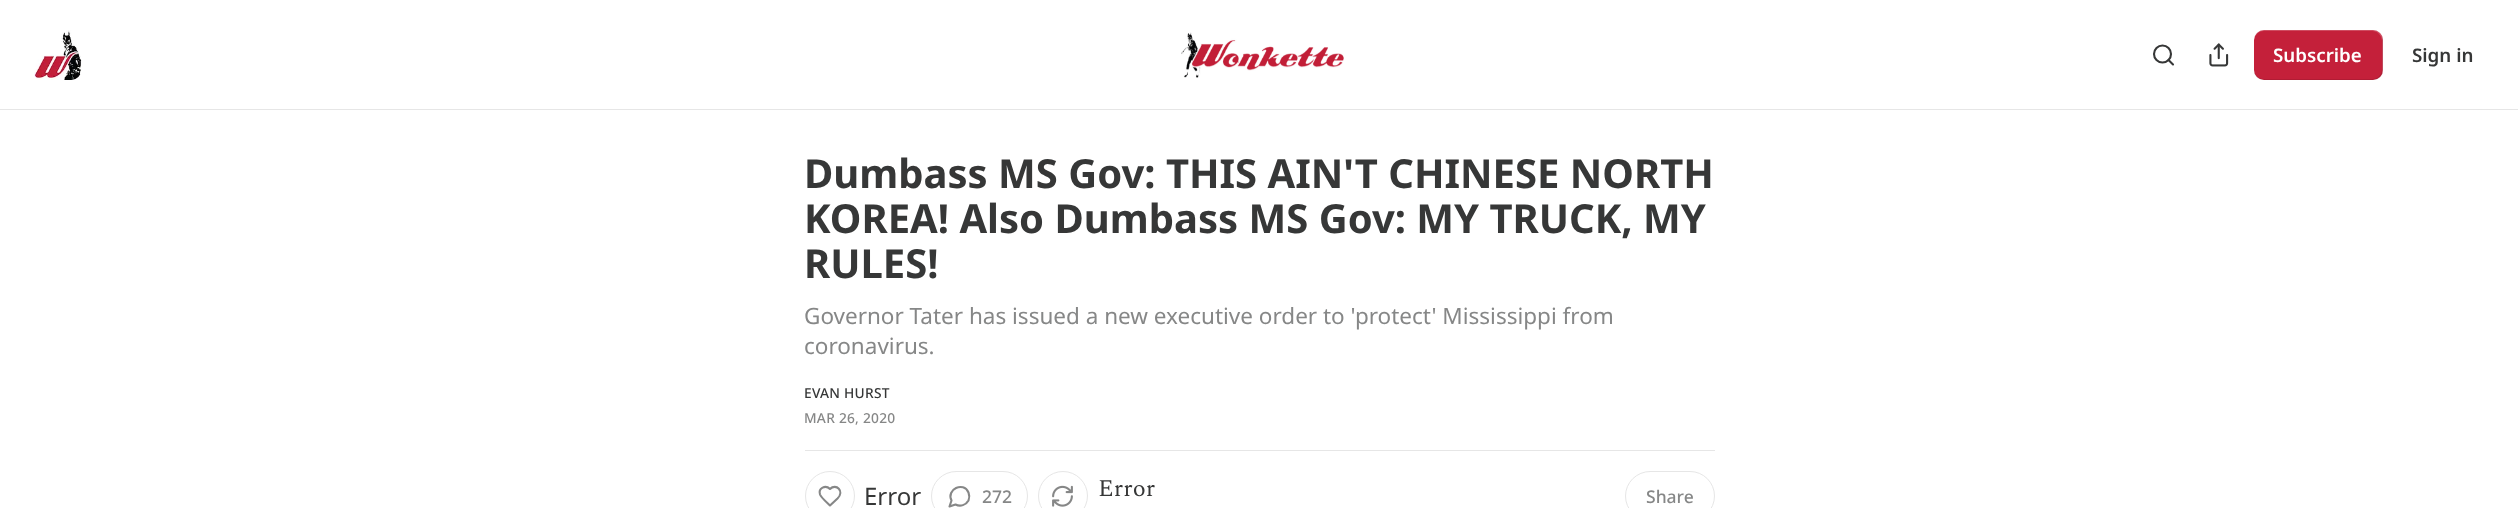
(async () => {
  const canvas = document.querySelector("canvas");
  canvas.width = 2518;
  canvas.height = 508;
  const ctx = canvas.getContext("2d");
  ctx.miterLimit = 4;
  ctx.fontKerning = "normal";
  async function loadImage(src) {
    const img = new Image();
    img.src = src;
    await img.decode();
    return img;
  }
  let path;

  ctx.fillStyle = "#ffffff";
  ctx.fillRect(0, 0, 2518, 508);
  ctx.fillStyle = "#e6e6e6";
  ctx.fillRect(0, 109, 2518, 1);
  ctx.drawImage(await loadImage("img/1.png"), 34, 30, 48, 50);
  ctx.drawImage(await loadImage("img/2.png"), 1181, 32, 163, 46);
  ctx.beginPath();
  ctx.arc(2162.5, 54, 8.5, 0, Math.PI * 2);
  ctx.strokeStyle = "#363737";
  ctx.lineWidth = 2.1;
  ctx.stroke();
  path = new Path2D("M2173 64.5L2168.5 60");
  ctx.lineCap = "round";
  ctx.lineJoin = "round";
  ctx.stroke(path);
  ctx.drawImage(await loadImage("img/3.png"), 2209, 43, 20, 24);
  ctx.fillStyle = "#c4203a";
  ctx.beginPath();
  ctx.roundRect(2254, 30, 129, 50, 10);
  ctx.fill();
  ctx.fillStyle = "rgba(0, 0, 0, 0.1)";
  path = new Path2D("M2254 69V70C2254 76 2258 80 2264 80H2373C2379 80 2383 76 2383 70V40C2383 38 2382 35 2381 34C2382 35 2382 37 2382 39V69C2382 74 2378 79 2372 79H2264C2258 79 2254 74 2254 69Z");
  ctx.fill(path);
  ctx.fillStyle = "rgba(255, 255, 255, 0.2)";
  path = new Path2D("M2264 31H2372C2378 31 2382 36 2382 41V71C2382 73 2382 75 2381 76C2382 75 2383 72 2383 70V40C2383 34 2379 30 2373 30H2264C2258 30 2254 34 2254 40V41C2254 36 2258 31 2264 31Z");
  ctx.fill(path);
  ctx.fillStyle = "#e6e6e6";
  ctx.fillRect(805, 450, 910, 1);
  ctx.beginPath();
  ctx.arc(830, 496, 24.5, 0, Math.PI * 2);
  ctx.strokeStyle = "#e6e6e6";
  ctx.lineWidth = 1;
  ctx.stroke();
  path = new Path2D("M837.5 498.5C845 491 836 483 830 489C825.5 484.5 818 488 820 494.5C821 497.5 827.5 503 830 505.5Z");
  ctx.strokeStyle = "#868787";
  ctx.lineWidth = 2.1;
  ctx.stroke(path);
  ctx.beginPath();
  ctx.roundRect(931.5, 471.5, 96, 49, 24.5);
  ctx.strokeStyle = "#e6e6e6";
  ctx.lineWidth = 1;
  ctx.lineJoin = "miter";
  ctx.stroke();
  path = new Path2D("M955.5 504.5C960.5 507 966 505 968.5 500.5C969.5 498 969.5 495 968.5 492.5C963.5 481 946 489.5 951.5 500.5L949.5 506.5Z");
  ctx.strokeStyle = "#868787";
  ctx.lineWidth = 2.1;
  ctx.lineJoin = "round";
  ctx.stroke(path);
  ctx.beginPath();
  ctx.arc(1063, 496, 24.5, 0, Math.PI * 2);
  ctx.strokeStyle = "#e6e6e6";
  ctx.lineWidth = 1;
  ctx.stroke();
  ctx.drawImage(await loadImage("img/4.png"), 1052, 485, 21, 22);
  ctx.beginPath();
  ctx.roundRect(1625.5, 471.5, 89, 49, 24.5);
  ctx.lineJoin = "miter";
  ctx.stroke();
  ctx.font = "600 18.75px Noto Sans";
  ctx.fillStyle = "#ffffff";
  ctx.fillText("Subscribe", 2273, 62);
  ctx.fillStyle = "#363737";
  ctx.fillText("Sign in", 2412, 62);
  ctx.font = "bold 40px Noto Sans";
  for (const [text, x, y] of [
    ["Dumbass MS Gov: THIS AIN'T CHINESE NORTH", 804, 188],
    ["KOREA! Also Dumbass MS Gov: MY TRUCK, MY", 804, 233],
    ["RULES!", 804, 278],
  ]) {
    ctx.fillText(text, x, y);
  }
  ctx.font = "22.5px Noto Sans";
  ctx.fillStyle = "#868787";
  ctx.fillText("Governor Tater has issued a new executive order to 'protect' Mississippi from", 804, 324);
  ctx.fillText("coronavirus.", 804, 354);
  ctx.letterSpacing = "0.25px";
  ctx.font = "500 13.75px Noto Sans";
  ctx.fillStyle = "#363737";
  ctx.fillText("EVAN HURST", 804, 398);
  ctx.fillStyle = "#868787";
  ctx.fillText("MAR 26, 2020", 804, 423);
  ctx.letterSpacing = "0px";
  ctx.font = "24px Noto Sans";
  ctx.fillStyle = "#363737";
  ctx.fillText("Error", 864, 505);
  ctx.font = "500 17.5px Noto Sans";
  ctx.fillStyle = "#868787";
  ctx.fillText("272", 982, 503);
  ctx.font = "24px Spectral";
  ctx.fillStyle = "#363737";
  ctx.fillText("Error", 1098, 496);
  ctx.font = "500 17.5px Noto Sans";
  ctx.fillStyle = "#868787";
  ctx.fillText("Share", 1646, 503);
})();
